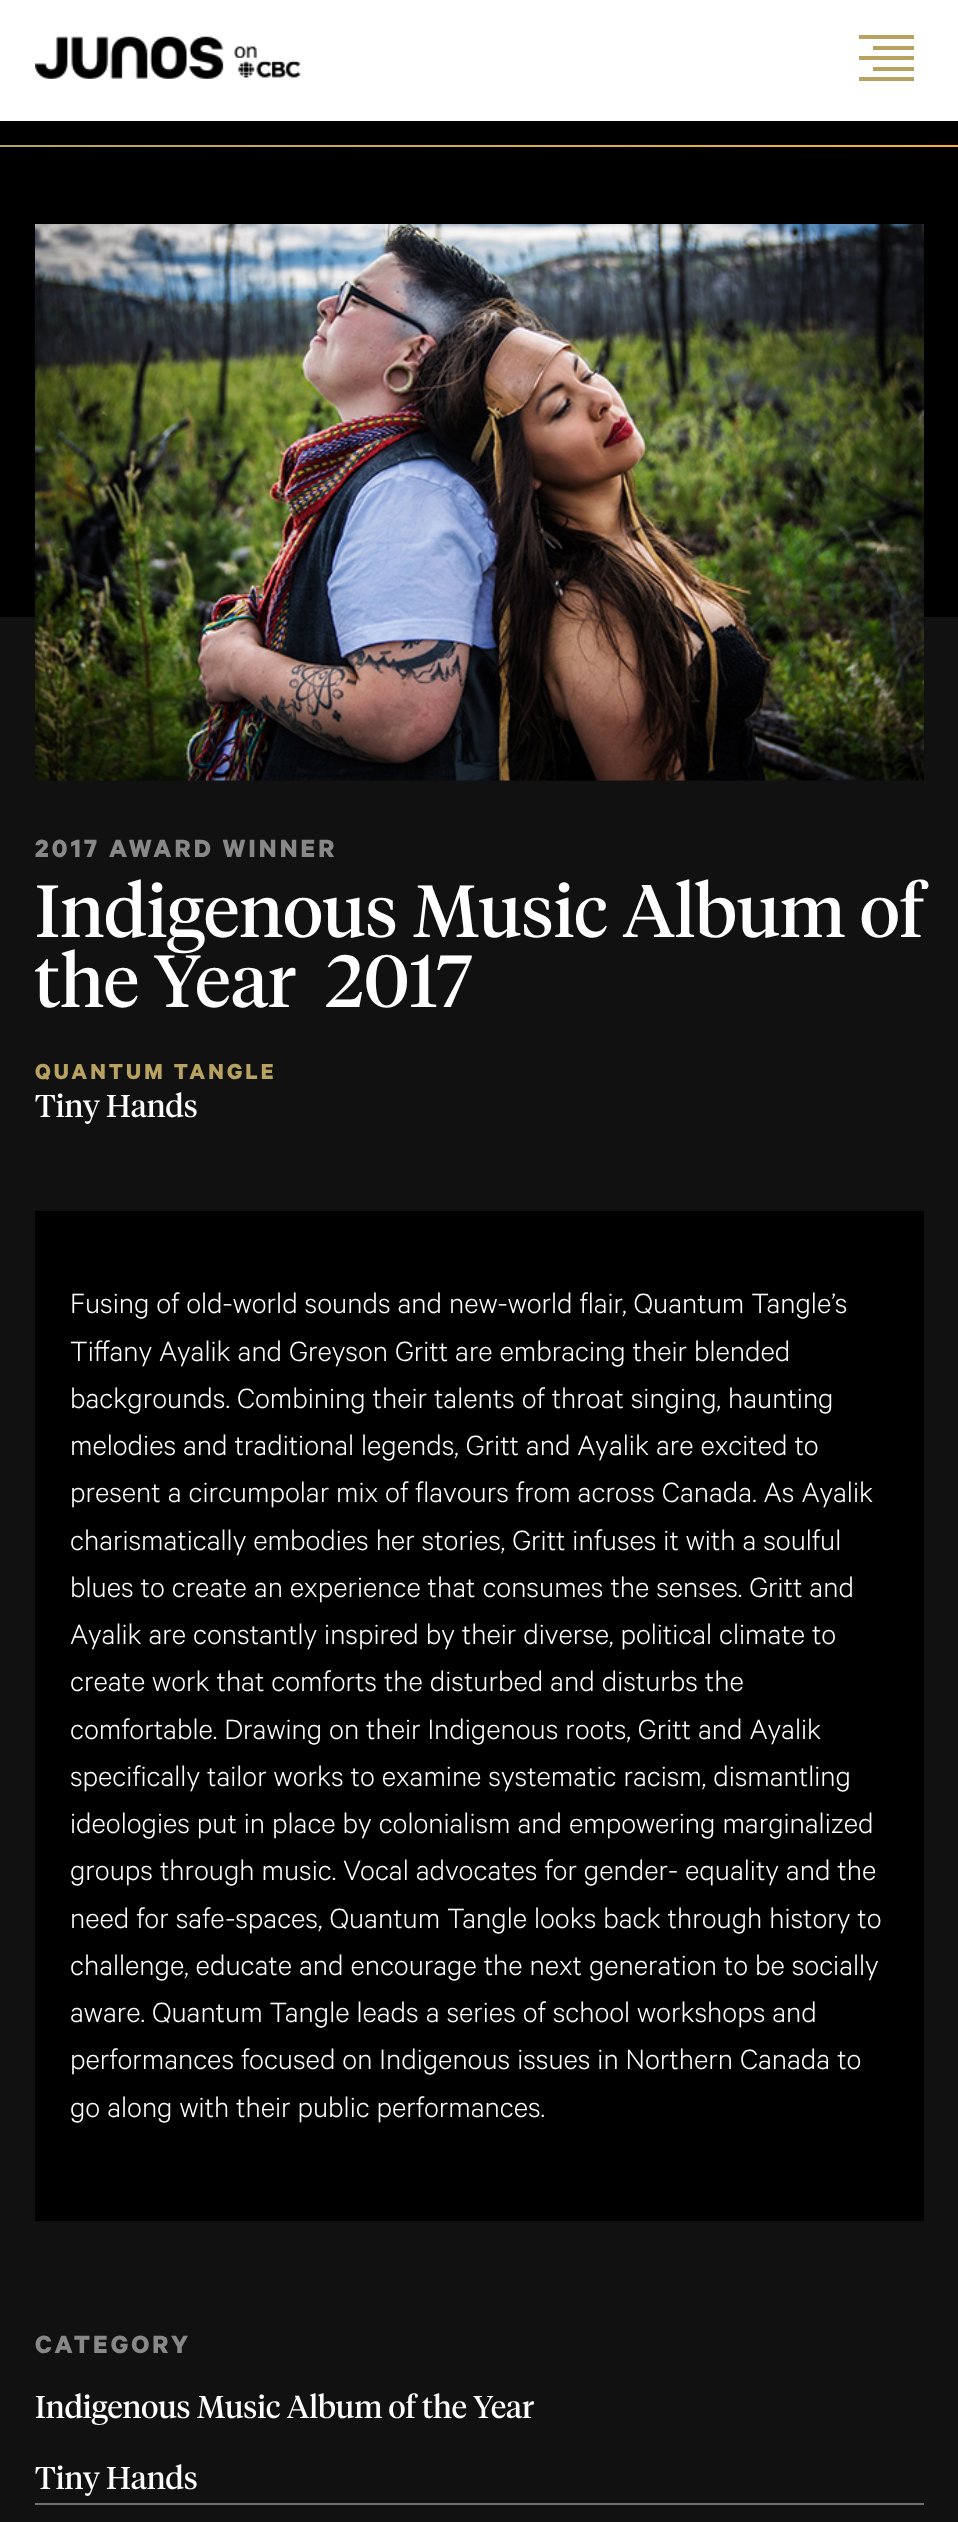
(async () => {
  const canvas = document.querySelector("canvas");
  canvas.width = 958;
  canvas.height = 2522;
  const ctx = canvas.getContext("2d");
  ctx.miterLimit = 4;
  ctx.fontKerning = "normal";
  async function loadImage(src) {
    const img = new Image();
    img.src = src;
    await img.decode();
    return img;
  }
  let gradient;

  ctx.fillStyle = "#111111";
  ctx.fillRect(0, 0, 958, 2522);
  ctx.fillStyle = "#ffffff";
  ctx.fillRect(0, 0, 958, 121);
  ctx.drawImage(await loadImage("img/1.png"), 35, 36, 266, 43);
  for (const [x, y, w, h, color] of [
    [859, 35, 55, 4, "#b7a261"],
    [873, 46, 41, 4, "#b7a261"],
    [859, 56, 55, 4, "#b7a261"],
    [873, 67, 41, 4, "#b7a261"],
    [859, 77, 55, 4, "#b7a261"],
    [0, 121, 958, 496, "#000000"],
  ]) {
    ctx.fillStyle = color;
    ctx.fillRect(x, y, w, h);
  }
  gradient = ctx.createLinearGradient(1.3, 121, 958, 171);
  gradient.addColorStop(0, "#b7a261");
  gradient.addColorStop(1, "#fcb033");
  ctx.fillStyle = gradient;
  ctx.fillRect(0, 145, 958, 2);
  ctx.drawImage(await loadImage("img/2.png"), 35, 224, 889, 557);
  ctx.fillStyle = "#000000";
  ctx.fillRect(35, 1211, 889, 1010);
  ctx.fillStyle = "#707070";
  ctx.fillRect(35, 2503, 889, 2);
  ctx.letterSpacing = "3.1px";
  ctx.font = "bold 28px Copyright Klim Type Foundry";
  ctx.fillStyle = "#888888";
  ctx.fillText("2017 AWARD WINNER", 35, 857);
  ctx.letterSpacing = "0px";
  ctx.font = "73.5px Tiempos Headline";
  ctx.fillStyle = "#ffffff";
  ctx.fillText("Indigenous Music Album of", 35, 937);
  ctx.fillText("the Year  2017", 35, 1007);
  ctx.letterSpacing = "3.1px";
  ctx.font = "bold 24.5px Copyright Klim Type Foundry";
  ctx.fillStyle = "#b7a261";
  ctx.fillText("QUANTUM TANGLE", 35, 1079);
  ctx.letterSpacing = "0px";
  ctx.font = "31.5px Tiempos Headline";
  ctx.fillStyle = "#ffffff";
  ctx.fillText("Tiny Hands", 35, 1117);
  ctx.font = "300 31.5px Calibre";
  for (const [text, x, y] of [
    ["Fusing of old-world sounds and new-world flair, Quantum Tangle’s", 70, 1313],
    ["Tiffany Ayalik and Greyson Gritt are embracing their blended", 70, 1361],
    ["backgrounds. Combining their talents of throat singing, haunting", 70, 1408],
    ["melodies and traditional legends, Gritt and Ayalik are excited to", 70, 1455],
    ["present a circumpolar mix of flavours from across Canada. As Ayalik", 70, 1502],
    ["charismatically embodies her stories, Gritt infuses it with a soulful", 70, 1550],
    ["blues to create an experience that consumes the senses. Gritt and", 70, 1597],
    ["Ayalik are constantly inspired by their diverse, political climate to", 70, 1644],
    ["create work that comforts the disturbed and disturbs the", 70, 1691],
    ["comfortable. Drawing on their Indigenous roots, Gritt and Ayalik", 70, 1739],
    ["specifically tailor works to examine systematic racism, dismantling", 70, 1786],
    ["ideologies put in place by colonialism and empowering marginalized", 70, 1833],
    ["groups through music. Vocal advocates for gender- equality and the", 70, 1880],
    ["need for safe-spaces, Quantum Tangle looks back through history to", 70, 1928],
    ["challenge, educate and encourage the next generation to be socially", 70, 1975],
    ["aware. Quantum Tangle leads a series of school workshops and", 70, 2022],
    ["performances focused on Indigenous issues in Northern Canada to", 70, 2069],
    ["go along with their public performances.", 70, 2117],
  ]) {
    ctx.fillText(text, x, y);
  }
  ctx.letterSpacing = "3.1px";
  ctx.font = "bold 28px Copyright Klim Type Foundry";
  ctx.fillStyle = "#888888";
  ctx.fillText("CATEGORY", 35, 2353);
  ctx.letterSpacing = "0px";
  ctx.font = "31.5px Tiempos Headline";
  ctx.fillStyle = "#ffffff";
  ctx.fillText("Indigenous Music Album of the Year", 35, 2418);
  ctx.fillText("Tiny Hands", 35, 2489);
})();
